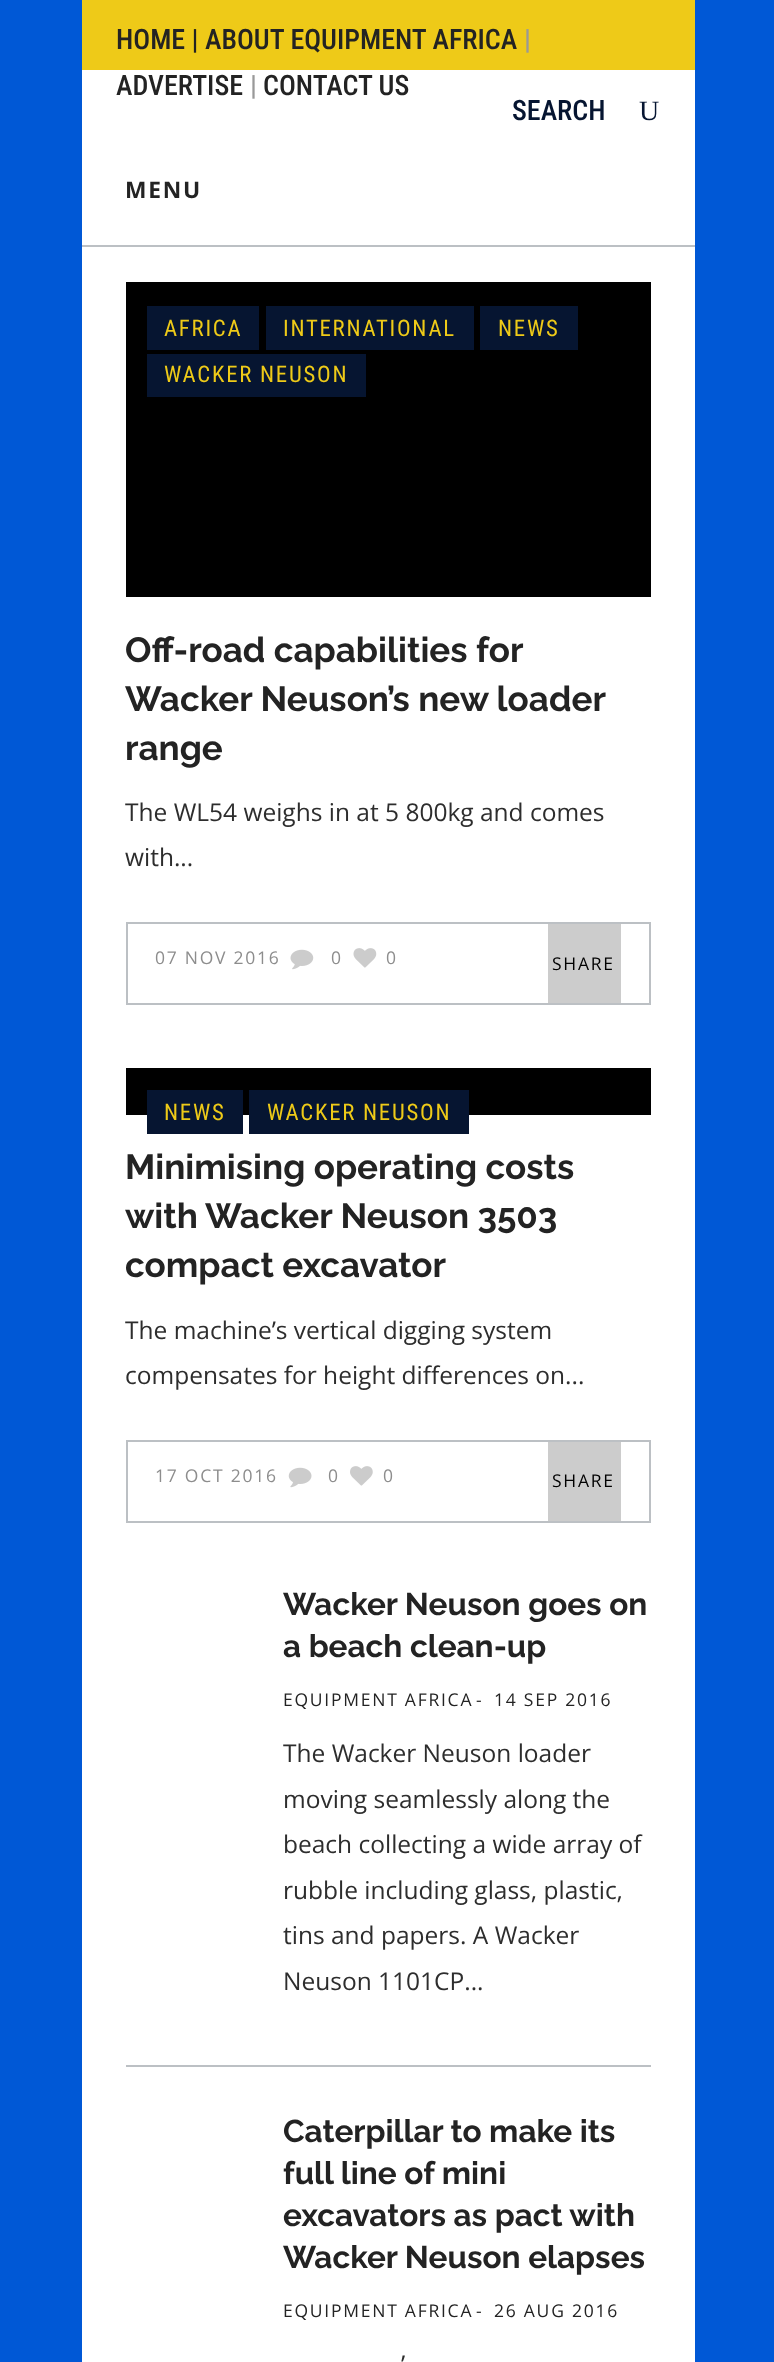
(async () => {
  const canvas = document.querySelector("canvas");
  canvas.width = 774;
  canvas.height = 2362;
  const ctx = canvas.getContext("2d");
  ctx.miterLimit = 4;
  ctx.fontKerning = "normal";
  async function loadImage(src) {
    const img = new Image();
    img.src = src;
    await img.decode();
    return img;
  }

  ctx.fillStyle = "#0058d6";
  ctx.fillRect(0, 0, 774, 2362);
  for (const [x, y, w, h, color] of [
    [82, 70, 613, 2292, "#ffffff"],
    [82, 0, 613, 70, "#eeca18"],
    [82, 245, 613, 2, "#bcc0c4"],
    [126, 282, 525, 315, "#000000"],
    [147, 306, 112, 44, "#061531"],
    [266, 306, 208, 44, "#061531"],
    [480, 306, 98, 44, "#061531"],
    [147, 354, 219, 43, "#061531"],
  ]) {
    ctx.fillStyle = color;
    ctx.fillRect(x, y, w, h);
  }
  ctx.strokeStyle = "#bcc0c4";
  ctx.lineWidth = 2;
  ctx.strokeRect(127, 923, 523, 81);
  ctx.drawImage(await loadImage("img/1.png"), 290, 949, 24, 21);
  ctx.drawImage(await loadImage("img/2.png"), 353, 948, 24, 20);
  for (const [x, y, w, h, color] of [
    [548, 924, 73, 79, "#cccccc"],
    [126, 1068, 525, 47, "#000000"],
    [147, 1090, 96, 44, "#061531"],
    [249, 1090, 220, 44, "#061531"],
  ]) {
    ctx.fillStyle = color;
    ctx.fillRect(x, y, w, h);
  }
  ctx.strokeRect(127, 1441, 523, 81);
  ctx.drawImage(await loadImage("img/3.png"), 288, 1467, 24, 21);
  ctx.drawImage(await loadImage("img/4.png"), 350, 1466, 23, 20);
  ctx.fillStyle = "#cccccc";
  ctx.fillRect(548, 1442, 73, 79);
  ctx.fillStyle = "#bcc0c4";
  ctx.fillRect(126, 2065, 525, 2);
  ctx.font = "500 28px Roboto Condensed";
  ctx.fillStyle = "#232323";
  ctx.fillText("HOME | ABOUT EQUIPMENT AFRICA", 116, 49);
  ctx.fillStyle = "#999999";
  ctx.fillText("|", 524, 49);
  ctx.fillStyle = "#232323";
  ctx.fillText("ADVERTISE", 116, 95);
  ctx.fillStyle = "#999999";
  ctx.fillText("|", 250, 95);
  ctx.fillStyle = "#232323";
  ctx.fillText("CONTACT US", 263, 95);
  ctx.fillStyle = "#061531";
  ctx.fillText("SEARCH", 512, 120);
  ctx.font = "28px Liberation Serif";
  ctx.fillText("U", 639, 120);
  ctx.letterSpacing = "1.75px";
  ctx.font = "bold 22.75px Open Sans";
  ctx.fillStyle = "#232323";
  ctx.fillText("MENU", 125, 198);
  ctx.font = "22.75px Roboto Condensed";
  ctx.fillStyle = "#eeca18";
  for (const [text, x, y] of [
    ["AFRICA", 164, 336],
    ["INTERNATIONAL", 283, 336],
    ["NEWS", 498, 336],
    ["WACKER NEUSON", 164, 382],
  ]) {
    ctx.fillText(text, x, y);
  }
  ctx.letterSpacing = "0px";
  ctx.font = "bold 35px Raleway";
  ctx.fillStyle = "#232323";
  for (const [text, x, y] of [
    ["Off-road capabilities for", 125, 662],
    ["Wacker Neuson’s new loader", 125, 711],
    ["range", 125, 760],
  ]) {
    ctx.fillText(text, x, y);
  }
  ctx.font = "24.5px Open Sans";
  ctx.fillStyle = "#2d2d2d";
  ctx.fillText("The WL54 weighs in at 5 800kg and comes", 125, 821);
  ctx.fillText("with...", 125, 866);
  ctx.letterSpacing = "1.75px";
  ctx.font = "17.5px Open Sans";
  ctx.fillStyle = "#8d8d8d";
  for (const [text, x, y] of [
    ["07 NOV 2016", 155, 964],
    ["0", 331, 964],
    ["0", 386, 964],
  ]) {
    ctx.fillText(text, x, y);
  }
  ctx.fillStyle = "#000000";
  ctx.fillText("SHARE", 552, 970);
  ctx.font = "22.75px Roboto Condensed";
  ctx.fillStyle = "#eeca18";
  ctx.fillText("NEWS", 164, 1120);
  ctx.fillText("WACKER NEUSON", 267, 1120);
  ctx.letterSpacing = "0px";
  ctx.font = "bold 35px Raleway";
  ctx.fillStyle = "#232323";
  for (const [text, x, y] of [
    ["Minimising operating costs", 125, 1179],
    ["with Wacker Neuson 3503", 125, 1228],
    ["compact excavator", 125, 1277],
  ]) {
    ctx.fillText(text, x, y);
  }
  ctx.font = "24.5px Open Sans";
  ctx.fillStyle = "#2d2d2d";
  ctx.fillText("The machine’s vertical digging system", 125, 1339);
  ctx.fillText("compensates for height differences on...", 125, 1384);
  ctx.letterSpacing = "1.75px";
  ctx.font = "17.5px Open Sans";
  ctx.fillStyle = "#8d8d8d";
  for (const [text, x, y] of [
    ["17 OCT 2016", 155, 1482],
    ["0", 328, 1482],
    ["0", 383, 1482],
  ]) {
    ctx.fillText(text, x, y);
  }
  ctx.fillStyle = "#000000";
  ctx.fillText("SHARE", 552, 1487);
  ctx.letterSpacing = "0px";
  ctx.font = "bold 31.5px Raleway";
  ctx.fillStyle = "#232323";
  ctx.fillText("Wacker Neuson goes on", 283, 1615);
  ctx.fillText("a beach clean-up", 283, 1657);
  ctx.letterSpacing = "1.75px";
  ctx.font = "17.5px Open Sans";
  ctx.fillText("EQUIPMENT AFRICA", 283, 1706);
  ctx.fillStyle = "#2d2d2d";
  ctx.fillText("-", 476, 1706);
  ctx.fillStyle = "#232323";
  ctx.fillText("14 SEP 2016", 494, 1706);
  ctx.letterSpacing = "0px";
  ctx.font = "24.5px Open Sans";
  ctx.fillStyle = "#2d2d2d";
  for (const [text, x, y] of [
    ["The Wacker Neuson loader", 283, 1762],
    ["moving seamlessly along the", 283, 1808],
    ["beach collecting a wide array of", 283, 1853],
    ["rubble including glass, plastic,", 283, 1899],
    ["tins and papers. A Wacker", 283, 1944],
    ["Neuson 1101CP...", 283, 1990],
  ]) {
    ctx.fillText(text, x, y);
  }
  ctx.font = "bold 31.5px Raleway";
  ctx.fillStyle = "#232323";
  for (const [text, x, y] of [
    ["Caterpillar to make its", 283, 2142],
    ["full line of mini", 283, 2184],
    ["excavators as pact with", 283, 2226],
    ["Wacker Neuson elapses", 283, 2268],
  ]) {
    ctx.fillText(text, x, y);
  }
  ctx.letterSpacing = "1.75px";
  ctx.font = "17.5px Open Sans";
  ctx.fillText("EQUIPMENT AFRICA", 283, 2317);
  ctx.fillStyle = "#2d2d2d";
  ctx.fillText("-", 476, 2317);
  ctx.fillStyle = "#232323";
  ctx.fillText("26 AUG 2016", 494, 2317);
  ctx.letterSpacing = "0px";
  ctx.font = "24.5px Open Sans";
  ctx.fillStyle = "#2d2d2d";
  ctx.fillText("’", 401, 2373);
})();
